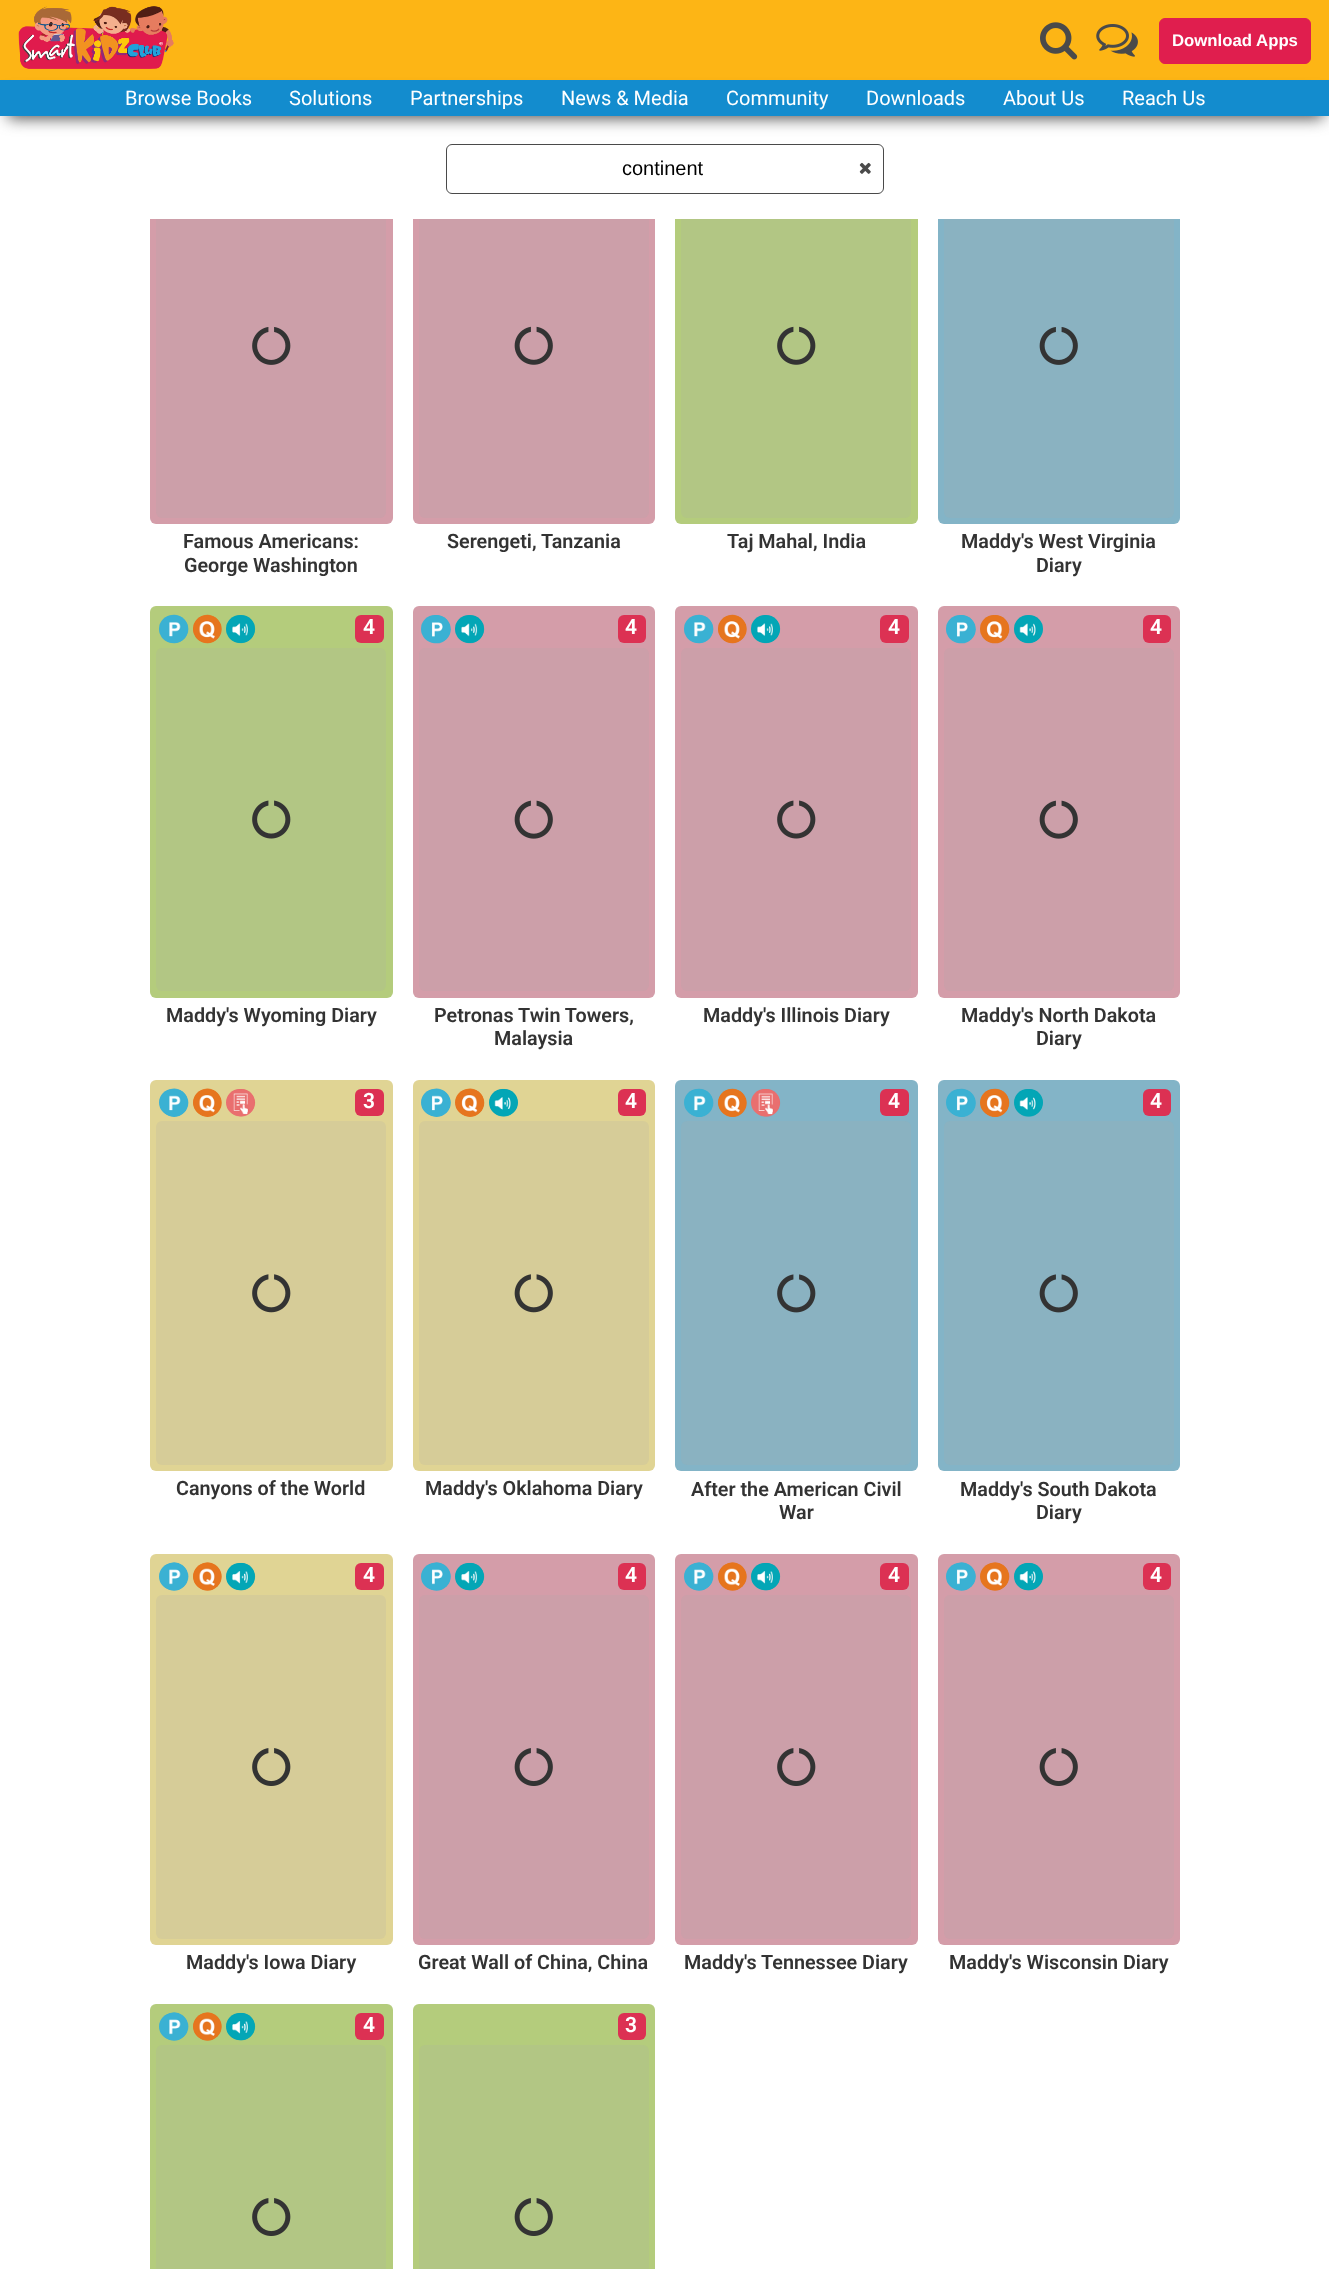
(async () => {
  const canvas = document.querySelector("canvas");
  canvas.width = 1329;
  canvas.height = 2269;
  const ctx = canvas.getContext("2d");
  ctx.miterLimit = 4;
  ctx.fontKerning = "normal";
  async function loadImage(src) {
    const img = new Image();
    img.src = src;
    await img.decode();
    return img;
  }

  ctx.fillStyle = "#ffffff";
  ctx.fillRect(0, 0, 1329, 2269);
  ctx.fillStyle = "#fdb515";
  ctx.fillRect(0, 0, 1329, 80);
  ctx.drawImage(await loadImage("img/1.png"), 18, 6, 156, 63);
  ctx.drawImage(await loadImage("img/2.png"), 1040, 22, 38, 38);
  ctx.drawImage(await loadImage("img/3.png"), 1096, 24, 42, 33);
  ctx.fillStyle = "#e01e4e";
  ctx.beginPath();
  ctx.roundRect(1159.5, 18.5, 151, 45, 5.5);
  ctx.fill();
  ctx.strokeStyle = "#e01e4e";
  ctx.stroke();
  ctx.fillStyle = "#d49da9";
  ctx.beginPath();
  ctx.roundRect(150, 133, 243, 391, 6);
  ctx.fill();
  ctx.fillStyle = "#cc9fa9";
  ctx.beginPath();
  ctx.roundRect(156, 174, 230, 344, 6);
  ctx.fill();
  ctx.fillStyle = "#d49da9";
  ctx.beginPath();
  ctx.roundRect(413, 133, 242, 391, 6);
  ctx.fill();
  ctx.fillStyle = "#cc9fa9";
  ctx.beginPath();
  ctx.roundRect(419, 174, 230, 344, 6);
  ctx.fill();
  ctx.fillStyle = "#b4cc7c";
  ctx.beginPath();
  ctx.roundRect(675, 133, 243, 391, 6);
  ctx.fill();
  ctx.fillStyle = "#b2c684";
  ctx.beginPath();
  ctx.roundRect(681, 174, 230, 344, 6);
  ctx.fill();
  ctx.fillStyle = "#83b4c7";
  ctx.beginPath();
  ctx.roundRect(938, 133, 242, 391, 6);
  ctx.fill();
  ctx.fillStyle = "#8ab2c1";
  ctx.beginPath();
  ctx.roundRect(944, 174, 230, 344, 6);
  ctx.fill();
  ctx.fillStyle = "#ffffff";
  ctx.fillRect(150, 133, 1030, 86);
  ctx.fillStyle = "#4a4a4a";
  ctx.filter = "blur(8px)";
  ctx.beginPath();
  ctx.rect(8, 96, 1315, 22);
  ctx.fill();
  ctx.filter = "none";
  ctx.fillStyle = "#138cce";
  ctx.fillRect(0, 80, 1329, 36);
  ctx.beginPath();
  ctx.roundRect(446.5, 144.5, 437, 49, 5.5);
  ctx.strokeStyle = "#4a4a4a";
  ctx.stroke();
  ctx.drawImage(await loadImage("img/4.png"), 859, 162, 12, 12);
  ctx.drawImage(await loadImage("img/5.png"), 252, 327, 39, 38);
  ctx.drawImage(await loadImage("img/6.png"), 514, 326, 39, 39);
  ctx.drawImage(await loadImage("img/7.png"), 777, 326, 39, 39);
  ctx.drawImage(await loadImage("img/8.png"), 1039, 327, 39, 38);
  ctx.fillStyle = "#b4cc7c";
  ctx.beginPath();
  ctx.roundRect(150, 606, 243, 392, 6);
  ctx.fill();
  ctx.fillStyle = "#3ab1d3";
  ctx.beginPath();
  ctx.roundRect(159, 615, 29, 28, 14);
  ctx.fill();
  ctx.drawImage(await loadImage("img/9.png"), 167, 614, 22, 30);
  ctx.fillStyle = "#e6751e";
  ctx.beginPath();
  ctx.arc(207, 629, 14, 0, Math.PI * 2);
  ctx.fill();
  ctx.drawImage(await loadImage("img/10.png"), 193, 614, 29, 30);
  ctx.fillStyle = "#03a6b6";
  ctx.beginPath();
  ctx.roundRect(226, 615, 29, 28, 14);
  ctx.fill();
  ctx.drawImage(await loadImage("img/11.png"), 232, 615, 24, 29);
  ctx.fillStyle = "#dc3153";
  ctx.beginPath();
  ctx.roundRect(355, 615, 29, 28, 6);
  ctx.fill();
  ctx.fillStyle = "#b2c684";
  ctx.beginPath();
  ctx.roundRect(156, 648, 230, 343, 6);
  ctx.fill();
  ctx.drawImage(await loadImage("img/12.png"), 252, 800, 39, 39);
  ctx.fillStyle = "#d49da9";
  ctx.beginPath();
  ctx.roundRect(413, 606, 242, 392, 6);
  ctx.fill();
  ctx.fillStyle = "#3ab1d3";
  ctx.beginPath();
  ctx.roundRect(421, 615, 29, 28, 14);
  ctx.fill();
  ctx.drawImage(await loadImage("img/13.png"), 429, 615, 22, 29);
  ctx.fillStyle = "#03a6b6";
  ctx.beginPath();
  ctx.roundRect(455, 615, 29, 28, 14);
  ctx.fill();
  ctx.drawImage(await loadImage("img/14.png"), 461, 615, 24, 29);
  ctx.fillStyle = "#dc3153";
  ctx.beginPath();
  ctx.roundRect(618, 615, 28, 28, 6);
  ctx.fill();
  ctx.fillStyle = "#cc9fa9";
  ctx.beginPath();
  ctx.roundRect(419, 648, 230, 343, 6);
  ctx.fill();
  ctx.drawImage(await loadImage("img/15.png"), 514, 800, 39, 39);
  ctx.fillStyle = "#d49da9";
  ctx.beginPath();
  ctx.roundRect(675, 606, 243, 392, 6);
  ctx.fill();
  ctx.fillStyle = "#3ab1d3";
  ctx.beginPath();
  ctx.roundRect(684, 615, 29, 28, 14);
  ctx.fill();
  ctx.drawImage(await loadImage("img/16.png"), 692, 614, 22, 30);
  ctx.fillStyle = "#e6751e";
  ctx.beginPath();
  ctx.arc(732, 629, 14, 0, Math.PI * 2);
  ctx.fill();
  ctx.drawImage(await loadImage("img/17.png"), 718, 614, 29, 30);
  ctx.fillStyle = "#03a6b6";
  ctx.beginPath();
  ctx.roundRect(751, 615, 29, 28, 14);
  ctx.fill();
  ctx.drawImage(await loadImage("img/18.png"), 757, 615, 24, 29);
  ctx.fillStyle = "#dc3153";
  ctx.beginPath();
  ctx.roundRect(880, 615, 29, 28, 6);
  ctx.fill();
  ctx.fillStyle = "#cc9fa9";
  ctx.beginPath();
  ctx.roundRect(681, 648, 230, 343, 6);
  ctx.fill();
  ctx.drawImage(await loadImage("img/19.png"), 777, 800, 39, 39);
  ctx.fillStyle = "#d49da9";
  ctx.beginPath();
  ctx.roundRect(938, 606, 242, 392, 6);
  ctx.fill();
  ctx.fillStyle = "#3ab1d3";
  ctx.beginPath();
  ctx.roundRect(946, 615, 29, 28, 14);
  ctx.fill();
  ctx.drawImage(await loadImage("img/13.png"), 954, 615, 22, 29);
  ctx.fillStyle = "#e6751e";
  ctx.beginPath();
  ctx.roundRect(980, 615, 29, 28, 14);
  ctx.fill();
  ctx.drawImage(await loadImage("img/20.png"), 985, 615, 25, 29);
  ctx.fillStyle = "#03a6b6";
  ctx.beginPath();
  ctx.roundRect(1014, 615, 29, 28, 14);
  ctx.fill();
  ctx.drawImage(await loadImage("img/21.png"), 1016, 615, 27, 29);
  ctx.fillStyle = "#dc3153";
  ctx.beginPath();
  ctx.roundRect(1143, 615, 28, 28, 6);
  ctx.fill();
  ctx.fillStyle = "#cc9fa9";
  ctx.beginPath();
  ctx.roundRect(944, 648, 230, 343, 6);
  ctx.fill();
  ctx.drawImage(await loadImage("img/15.png"), 1039, 800, 39, 39);
  ctx.fillStyle = "#e0d494";
  ctx.beginPath();
  ctx.roundRect(150, 1080, 243, 391, 6);
  ctx.fill();
  ctx.fillStyle = "#3ab1d3";
  ctx.beginPath();
  ctx.roundRect(159, 1089, 29, 27, 13.5);
  ctx.fill();
  ctx.drawImage(await loadImage("img/22.png"), 163, 1088, 26, 29);
  ctx.fillStyle = "#e6751e";
  ctx.beginPath();
  ctx.roundRect(193, 1089, 28, 27, 13.5);
  ctx.fill();
  ctx.drawImage(await loadImage("img/23.png"), 193, 1088, 29, 29);
  ctx.fillStyle = "#e96f6f";
  ctx.beginPath();
  ctx.roundRect(226, 1089, 29, 27, 13.5);
  ctx.fill();
  ctx.drawImage(await loadImage("img/24.png"), 232, 1089, 24, 28);
  ctx.fillStyle = "#dc3153";
  ctx.beginPath();
  ctx.roundRect(355, 1089, 29, 27, 6);
  ctx.fill();
  ctx.fillStyle = "#d6cc98";
  ctx.beginPath();
  ctx.roundRect(156, 1121, 230, 344, 6);
  ctx.fill();
  ctx.drawImage(await loadImage("img/25.png"), 252, 1274, 39, 39);
  ctx.fillStyle = "#e0d494";
  ctx.beginPath();
  ctx.roundRect(413, 1080, 242, 391, 6);
  ctx.fill();
  ctx.fillStyle = "#3ab1d3";
  ctx.beginPath();
  ctx.roundRect(421, 1089, 29, 27, 13.5);
  ctx.fill();
  ctx.drawImage(await loadImage("img/26.png"), 427, 1088, 24, 29);
  ctx.fillStyle = "#e6751e";
  ctx.beginPath();
  ctx.roundRect(455, 1089, 29, 27, 13.5);
  ctx.fill();
  ctx.drawImage(await loadImage("img/27.png"), 458, 1088, 27, 29);
  ctx.fillStyle = "#03a6b6";
  ctx.beginPath();
  ctx.roundRect(489, 1089, 29, 27, 13.5);
  ctx.fill();
  ctx.drawImage(await loadImage("img/28.png"), 490, 1088, 28, 29);
  ctx.fillStyle = "#dc3153";
  ctx.beginPath();
  ctx.roundRect(618, 1089, 28, 27, 6);
  ctx.fill();
  ctx.fillStyle = "#d6cc98";
  ctx.beginPath();
  ctx.roundRect(419, 1121, 230, 344, 6);
  ctx.fill();
  ctx.drawImage(await loadImage("img/29.png"), 514, 1274, 39, 39);
  ctx.fillStyle = "#83b4c7";
  ctx.beginPath();
  ctx.roundRect(675, 1080, 243, 391, 6);
  ctx.fill();
  ctx.fillStyle = "#3ab1d3";
  ctx.beginPath();
  ctx.roundRect(684, 1089, 29, 27, 13.5);
  ctx.fill();
  ctx.drawImage(await loadImage("img/30.png"), 688, 1088, 26, 29);
  ctx.fillStyle = "#e6751e";
  ctx.beginPath();
  ctx.roundRect(718, 1089, 28, 27, 13.5);
  ctx.fill();
  ctx.drawImage(await loadImage("img/31.png"), 718, 1088, 29, 29);
  ctx.fillStyle = "#e96f6f";
  ctx.beginPath();
  ctx.roundRect(751, 1089, 29, 27, 13.5);
  ctx.fill();
  ctx.drawImage(await loadImage("img/32.png"), 757, 1089, 24, 28);
  ctx.fillStyle = "#dc3153";
  ctx.beginPath();
  ctx.roundRect(880, 1089, 29, 27, 6);
  ctx.fill();
  ctx.fillStyle = "#8ab2c1";
  ctx.beginPath();
  ctx.roundRect(681, 1121, 230, 344, 6);
  ctx.fill();
  ctx.drawImage(await loadImage("img/33.png"), 777, 1274, 39, 39);
  ctx.fillStyle = "#83b4c7";
  ctx.beginPath();
  ctx.roundRect(938, 1080, 242, 391, 6);
  ctx.fill();
  ctx.fillStyle = "#3ab1d3";
  ctx.beginPath();
  ctx.roundRect(946, 1089, 29, 27, 13.5);
  ctx.fill();
  ctx.drawImage(await loadImage("img/34.png"), 952, 1088, 24, 29);
  ctx.fillStyle = "#e6751e";
  ctx.beginPath();
  ctx.roundRect(980, 1089, 29, 27, 13.5);
  ctx.fill();
  ctx.drawImage(await loadImage("img/35.png"), 982, 1088, 28, 29);
  ctx.fillStyle = "#03a6b6";
  ctx.beginPath();
  ctx.roundRect(1014, 1089, 29, 27, 13.5);
  ctx.fill();
  ctx.drawImage(await loadImage("img/36.png"), 1016, 1089, 27, 28);
  ctx.fillStyle = "#dc3153";
  ctx.beginPath();
  ctx.roundRect(1143, 1089, 28, 27, 6);
  ctx.fill();
  ctx.fillStyle = "#8ab2c1";
  ctx.beginPath();
  ctx.roundRect(944, 1121, 230, 344, 6);
  ctx.fill();
  ctx.drawImage(await loadImage("img/37.png"), 1039, 1274, 39, 39);
  ctx.fillStyle = "#e0d494";
  ctx.beginPath();
  ctx.roundRect(150, 1554, 243, 391, 6);
  ctx.fill();
  ctx.fillStyle = "#3ab1d3";
  ctx.beginPath();
  ctx.roundRect(159, 1563, 29, 27, 13.5);
  ctx.fill();
  ctx.drawImage(await loadImage("img/38.png"), 165, 1562, 24, 29);
  ctx.fillStyle = "#e6751e";
  ctx.beginPath();
  ctx.roundRect(193, 1563, 28, 27, 13.5);
  ctx.fill();
  ctx.drawImage(await loadImage("img/39.png"), 193, 1562, 29, 29);
  ctx.fillStyle = "#03a6b6";
  ctx.beginPath();
  ctx.roundRect(226, 1563, 29, 27, 13.5);
  ctx.fill();
  ctx.drawImage(await loadImage("img/40.png"), 232, 1562, 24, 29);
  ctx.fillStyle = "#dc3153";
  ctx.beginPath();
  ctx.roundRect(355, 1563, 29, 27, 6);
  ctx.fill();
  ctx.fillStyle = "#d6cc98";
  ctx.beginPath();
  ctx.roundRect(156, 1595, 230, 344, 6);
  ctx.fill();
  ctx.drawImage(await loadImage("img/41.png"), 252, 1748, 39, 38);
  ctx.fillStyle = "#d49da9";
  ctx.beginPath();
  ctx.roundRect(413, 1554, 242, 391, 6);
  ctx.fill();
  ctx.fillStyle = "#3ab1d3";
  ctx.beginPath();
  ctx.roundRect(421, 1563, 29, 27, 13.5);
  ctx.fill();
  ctx.drawImage(await loadImage("img/42.png"), 429, 1562, 22, 29);
  ctx.fillStyle = "#03a6b6";
  ctx.beginPath();
  ctx.roundRect(455, 1563, 29, 27, 13.5);
  ctx.fill();
  ctx.drawImage(await loadImage("img/43.png"), 461, 1562, 24, 29);
  ctx.fillStyle = "#dc3153";
  ctx.beginPath();
  ctx.roundRect(618, 1563, 28, 27, 6);
  ctx.fill();
  ctx.fillStyle = "#cc9fa9";
  ctx.beginPath();
  ctx.roundRect(419, 1595, 230, 344, 6);
  ctx.fill();
  ctx.drawImage(await loadImage("img/44.png"), 514, 1748, 39, 38);
  ctx.fillStyle = "#d49da9";
  ctx.beginPath();
  ctx.roundRect(675, 1554, 243, 391, 6);
  ctx.fill();
  ctx.fillStyle = "#3ab1d3";
  ctx.beginPath();
  ctx.roundRect(684, 1563, 29, 27, 13.5);
  ctx.fill();
  ctx.drawImage(await loadImage("img/45.png"), 690, 1562, 24, 29);
  ctx.fillStyle = "#e6751e";
  ctx.beginPath();
  ctx.roundRect(718, 1563, 28, 27, 13.5);
  ctx.fill();
  ctx.drawImage(await loadImage("img/46.png"), 718, 1562, 29, 29);
  ctx.fillStyle = "#03a6b6";
  ctx.beginPath();
  ctx.roundRect(751, 1563, 29, 27, 13.5);
  ctx.fill();
  ctx.drawImage(await loadImage("img/47.png"), 757, 1562, 24, 29);
  ctx.fillStyle = "#dc3153";
  ctx.beginPath();
  ctx.roundRect(880, 1563, 29, 27, 6);
  ctx.fill();
  ctx.fillStyle = "#cc9fa9";
  ctx.beginPath();
  ctx.roundRect(681, 1595, 230, 344, 6);
  ctx.fill();
  ctx.drawImage(await loadImage("img/48.png"), 777, 1748, 39, 38);
  ctx.fillStyle = "#d49da9";
  ctx.beginPath();
  ctx.roundRect(938, 1554, 242, 391, 6);
  ctx.fill();
  ctx.fillStyle = "#3ab1d3";
  ctx.beginPath();
  ctx.roundRect(946, 1563, 29, 27, 13.5);
  ctx.fill();
  ctx.drawImage(await loadImage("img/42.png"), 954, 1562, 22, 29);
  ctx.fillStyle = "#e6751e";
  ctx.beginPath();
  ctx.roundRect(980, 1563, 29, 27, 13.5);
  ctx.fill();
  ctx.drawImage(await loadImage("img/49.png"), 986, 1562, 24, 29);
  ctx.fillStyle = "#03a6b6";
  ctx.beginPath();
  ctx.roundRect(1014, 1563, 29, 27, 13.5);
  ctx.fill();
  ctx.drawImage(await loadImage("img/50.png"), 1016, 1562, 27, 29);
  ctx.fillStyle = "#dc3153";
  ctx.beginPath();
  ctx.roundRect(1143, 1563, 28, 27, 6);
  ctx.fill();
  ctx.fillStyle = "#cc9fa9";
  ctx.beginPath();
  ctx.roundRect(944, 1595, 230, 344, 6);
  ctx.fill();
  ctx.drawImage(await loadImage("img/44.png"), 1039, 1748, 39, 38);
  ctx.fillStyle = "#b4cc7c";
  ctx.beginPath();
  ctx.roundRect(150, 2004, 243, 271, 6);
  ctx.fill();
  ctx.fillStyle = "#3ab1d3";
  ctx.beginPath();
  ctx.roundRect(159, 2013, 29, 27, 13.5);
  ctx.fill();
  ctx.drawImage(await loadImage("img/51.png"), 165, 2012, 24, 29);
  ctx.fillStyle = "#e6751e";
  ctx.beginPath();
  ctx.roundRect(193, 2013, 28, 27, 13.5);
  ctx.fill();
  ctx.drawImage(await loadImage("img/52.png"), 193, 2012, 29, 29);
  ctx.fillStyle = "#03a6b6";
  ctx.beginPath();
  ctx.roundRect(226, 2013, 29, 27, 13.5);
  ctx.fill();
  ctx.drawImage(await loadImage("img/53.png"), 232, 2012, 24, 29);
  ctx.fillStyle = "#dc3153";
  ctx.beginPath();
  ctx.roundRect(355, 2013, 29, 27, 6);
  ctx.fill();
  ctx.fillStyle = "#b2c684";
  ctx.beginPath();
  ctx.roundRect(156, 2045, 230, 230, 6);
  ctx.fill();
  ctx.drawImage(await loadImage("img/54.png"), 252, 2198, 39, 38);
  ctx.fillStyle = "#b4cc7c";
  ctx.beginPath();
  ctx.roundRect(413, 2004, 242, 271, 6);
  ctx.fill();
  ctx.fillStyle = "#dc3153";
  ctx.beginPath();
  ctx.roundRect(618, 2013, 28, 27, 6);
  ctx.fill();
  ctx.fillStyle = "#b2c684";
  ctx.beginPath();
  ctx.roundRect(419, 2045, 230, 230, 6);
  ctx.fill();
  ctx.drawImage(await loadImage("img/55.png"), 514, 2198, 39, 38);
  ctx.font = "bold 16.75px Liberation Sans";
  ctx.fillStyle = "#ffffff";
  ctx.fillText("Download Apps", 1172, 46);
  ctx.font = "20px Roboto";
  for (const [text, x, y] of [
    ["Browse Books", 125, 105],
    ["Solutions", 289, 105],
    ["Partnerships", 410, 105],
    ["News & Media", 561, 105],
    ["Community", 726, 105],
    ["Downloads", 866, 105],
    ["About Us", 1003, 105],
    ["Reach Us", 1122, 105],
  ]) {
    ctx.fillText(text, x, y);
  }
  ctx.font = "20px Liberation Sans";
  ctx.fillStyle = "#000000";
  ctx.fillText("continent", 622, 175);
  ctx.font = "600 19.75px Roboto";
  ctx.fillStyle = "#333333";
  for (const [text, x, y] of [
    ["Famous Americans:", 183, 548],
    ["George Washington", 184, 572],
    ["Serengeti, Tanzania", 447, 548],
    ["Taj Mahal, India", 727, 548],
    ["Maddy's West Virginia", 961, 548],
    ["Diary", 1036, 572],
  ]) {
    ctx.fillText(text, x, y);
  }
  ctx.font = "600 21px Roboto";
  ctx.fillStyle = "#ffffff";
  ctx.fillText("4", 363, 634);
  ctx.font = "600 19.75px Roboto";
  ctx.fillStyle = "#333333";
  ctx.fillText("Maddy's Wyoming Diary", 166, 1022);
  ctx.font = "600 21px Roboto";
  ctx.fillStyle = "#ffffff";
  ctx.fillText("4", 625, 634);
  ctx.font = "600 19.75px Roboto";
  ctx.fillStyle = "#333333";
  ctx.fillText("Petronas Twin Towers,", 434, 1022);
  ctx.fillText("Malaysia", 494, 1045);
  ctx.font = "600 21px Roboto";
  ctx.fillStyle = "#ffffff";
  ctx.fillText("4", 888, 634);
  ctx.font = "600 19.75px Roboto";
  ctx.fillStyle = "#333333";
  ctx.fillText("Maddy's Illinois Diary", 703, 1022);
  ctx.font = "600 21px Roboto";
  ctx.fillStyle = "#ffffff";
  ctx.fillText("4", 1150, 634);
  ctx.font = "600 19.75px Roboto";
  ctx.fillStyle = "#333333";
  ctx.fillText("Maddy's North Dakota", 961, 1022);
  ctx.fillText("Diary", 1036, 1045);
  ctx.font = "600 21px Roboto";
  ctx.fillStyle = "#ffffff";
  ctx.fillText("3", 363, 1108);
  ctx.font = "600 19.75px Roboto";
  ctx.fillStyle = "#333333";
  ctx.fillText("Canyons of the World", 176, 1495);
  ctx.font = "600 21px Roboto";
  ctx.fillStyle = "#ffffff";
  ctx.fillText("4", 625, 1108);
  ctx.font = "600 19.75px Roboto";
  ctx.fillStyle = "#333333";
  ctx.fillText("Maddy's Oklahoma Diary", 425, 1495);
  ctx.font = "600 21px Roboto";
  ctx.fillStyle = "#ffffff";
  ctx.fillText("4", 888, 1108);
  ctx.font = "600 19.75px Roboto";
  ctx.fillStyle = "#333333";
  ctx.fillText("After the American Civil", 691, 1496);
  ctx.fillText("War", 779, 1519);
  ctx.font = "600 21px Roboto";
  ctx.fillStyle = "#ffffff";
  ctx.fillText("4", 1150, 1108);
  ctx.font = "600 19.75px Roboto";
  ctx.fillStyle = "#333333";
  ctx.fillText("Maddy's South Dakota", 960, 1496);
  ctx.fillText("Diary", 1036, 1519);
  ctx.font = "600 21px Roboto";
  ctx.fillStyle = "#ffffff";
  ctx.fillText("4", 363, 1582);
  ctx.font = "600 19.75px Roboto";
  ctx.fillStyle = "#333333";
  ctx.fillText("Maddy's Iowa Diary", 186, 1969);
  ctx.font = "600 21px Roboto";
  ctx.fillStyle = "#ffffff";
  ctx.fillText("4", 625, 1582);
  ctx.font = "600 19.75px Roboto";
  ctx.fillStyle = "#333333";
  ctx.fillText("Great Wall of China, China", 418, 1969);
  ctx.font = "600 21px Roboto";
  ctx.fillStyle = "#ffffff";
  ctx.fillText("4", 888, 1582);
  ctx.font = "600 19.75px Roboto";
  ctx.fillStyle = "#333333";
  ctx.fillText("Maddy's Tennessee Diary", 684, 1969);
  ctx.font = "600 21px Roboto";
  ctx.fillStyle = "#ffffff";
  ctx.fillText("4", 1150, 1582);
  ctx.font = "600 19.75px Roboto";
  ctx.fillStyle = "#333333";
  ctx.fillText("Maddy's Wisconsin Diary", 949, 1969);
  ctx.font = "600 21px Roboto";
  ctx.fillStyle = "#ffffff";
  ctx.fillText("4", 363, 2032);
  ctx.fillText("3", 625, 2032);
})();
